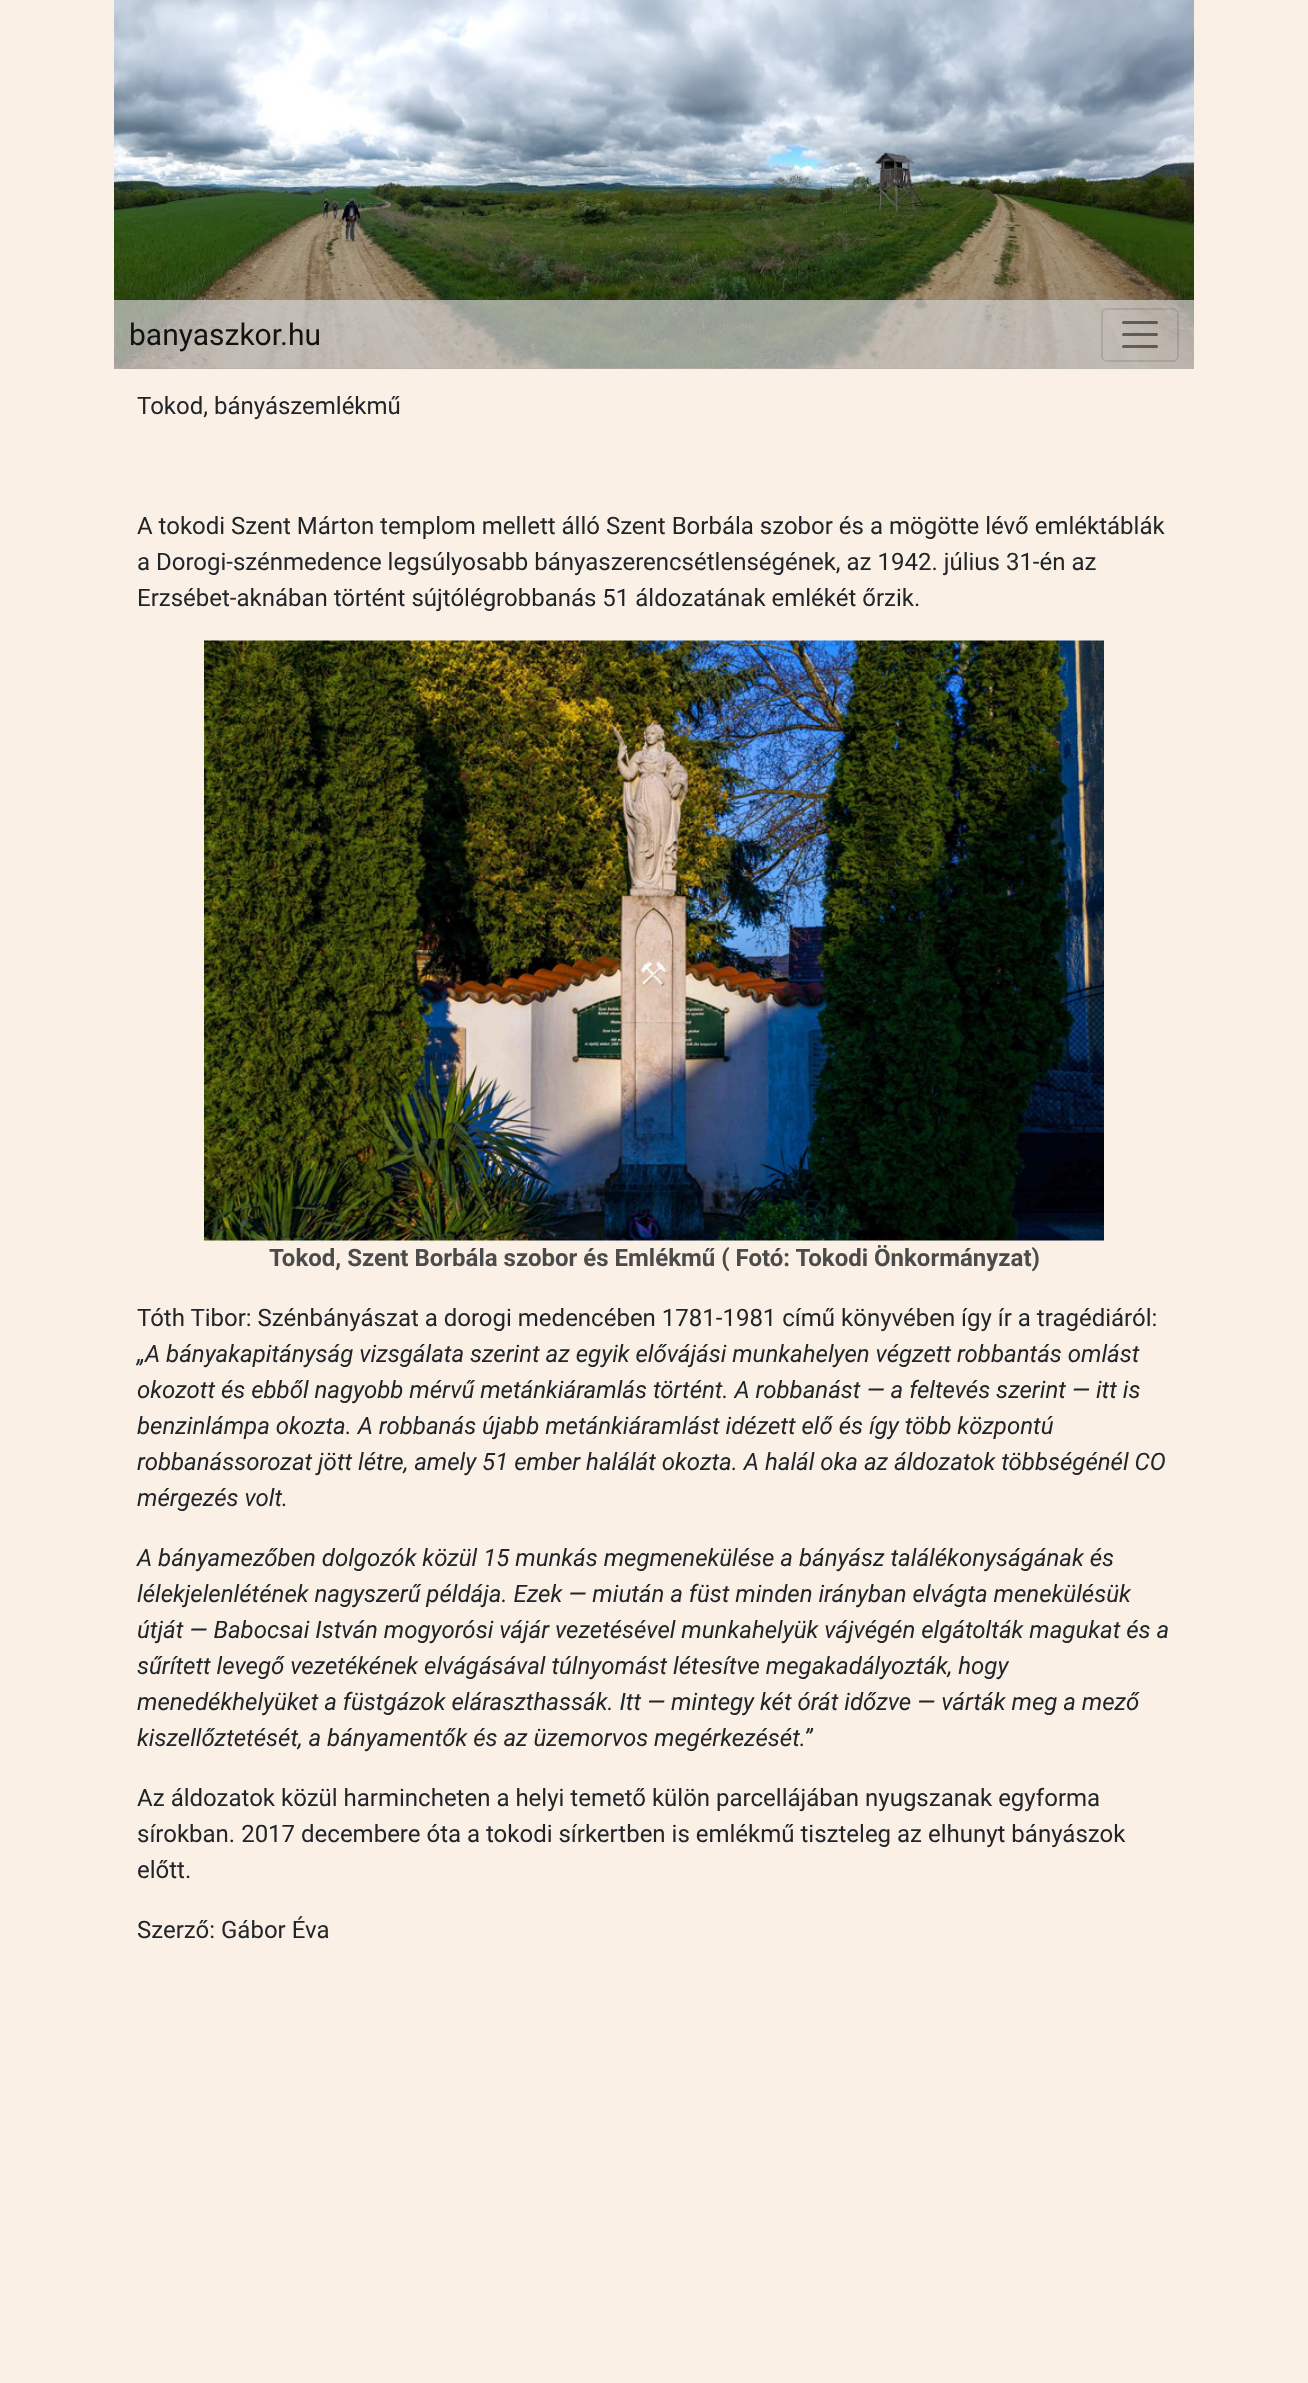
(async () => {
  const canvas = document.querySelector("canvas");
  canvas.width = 1308;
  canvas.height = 2383;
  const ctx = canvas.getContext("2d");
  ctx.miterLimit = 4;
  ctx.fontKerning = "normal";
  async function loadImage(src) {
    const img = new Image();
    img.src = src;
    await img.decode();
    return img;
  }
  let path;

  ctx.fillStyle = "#faf0e6";
  ctx.fillRect(0, 0, 1308, 2383);
  ctx.drawImage(await loadImage("img/1.png"), 114, 0, 1080, 369);
  ctx.fillStyle = "rgba(211, 211, 211, 0.7)";
  ctx.fillRect(114, 300, 1080, 69);
  ctx.beginPath();
  ctx.roundRect(1102, 309, 76, 52, 5);
  ctx.strokeStyle = "rgba(0, 0, 0, 0.1)";
  ctx.lineWidth = 2;
  ctx.stroke();
  path = new Path2D("M1123.5 322.5H1156.5M1123.5 334.5H1156.5M1123.5 346.5H1156.5");
  ctx.strokeStyle = "rgba(0, 0, 0, 0.5)";
  ctx.lineWidth = 3;
  ctx.lineCap = "round";
  ctx.stroke(path);
  ctx.drawImage(await loadImage("img/2.png"), 204, 640, 900, 601);
  ctx.font = "30px Roboto";
  ctx.fillStyle = "#121211";
  ctx.fillText("banyaszkor.hu", 129, 345);
  ctx.font = "24px Roboto";
  ctx.fillStyle = "#212529";
  for (const [text, x, y] of [
    ["Tokod, bányászemlékmű", 137, 414],
    ["A tokodi Szent Márton templom mellett álló Szent Borbála szobor és a mögötte lévő emléktáblák", 137, 534],
    ["a Dorogi-szénmedence legsúlyosabb bányaszerencsétlenségének, az 1942. július 31-én az", 137, 570],
    ["Erzsébet-aknában történt sújtólégrobbanás 51 áldozatának emlékét őrzik.", 137, 606],
  ]) {
    ctx.fillText(text, x, y);
  }
  ctx.font = "bold 24px Roboto";
  ctx.fillStyle = "#4b4b4b";
  ctx.fillText("Tokod, Szent Borbála szobor és Emlékmű ( Fotó: Tokodi Önkormányzat)", 269, 1266);
  ctx.font = "24px Roboto";
  ctx.fillStyle = "#212529";
  ctx.fillText("Tóth Tibor: Szénbányászat a dorogi medencében 1781-1981 című könyvében így ír a tragédiáról:", 137, 1326);
  ctx.font = "italic 24px Roboto";
  for (const [text, x, y] of [
    ["„A bányakapitányság vizsgálata szerint az egyik elővájási munkahelyen végzett robbantás omlást", 137, 1362],
    ["okozott és ebből nagyobb mérvű metánkiáramlás történt. A robbanást — a feltevés szerint — itt is", 137, 1398],
    ["benzinlámpa okozta. A robbanás újabb metánkiáramlást idézett elő és így több központú", 137, 1434],
    ["robbanássorozat jött létre, amely 51 ember halálát okozta. A halál oka az áldozatok többségénél CO", 137, 1470],
    ["mérgezés volt.", 137, 1506],
    ["A bányamezőben dolgozók közül 15 munkás megmenekülése a bányász találékonyságának és", 137, 1566],
    ["lélekjelenlétének nagyszerű példája. Ezek — miután a füst minden irányban elvágta menekülésük", 137, 1602],
    ["útját — Babocsai István mogyorósi vájár vezetésével munkahelyük vájvégén elgátolták magukat és a", 137, 1638],
    ["sűrített levegő vezetékének elvágásával túlnyomást létesítve megakadályozták, hogy", 137, 1674],
    ["menedékhelyüket a füstgázok eláraszthassák. Itt — mintegy két órát időzve — várták meg a mező", 137, 1710],
    ["kiszellőztetését, a bányamentők és az üzemorvos megérkezését.”", 137, 1746],
  ]) {
    ctx.fillText(text, x, y);
  }
  ctx.font = "24px Roboto";
  for (const [text, x, y] of [
    ["Az áldozatok közül harmincheten a helyi temető külön parcellájában nyugszanak egyforma", 137, 1806],
    ["sírokban. 2017 decembere óta a tokodi sírkertben is emlékmű tiszteleg az elhunyt bányászok", 137, 1842],
    ["előtt.", 137, 1878],
    ["Szerző: Gábor Éva", 137, 1938],
  ]) {
    ctx.fillText(text, x, y);
  }
})();
